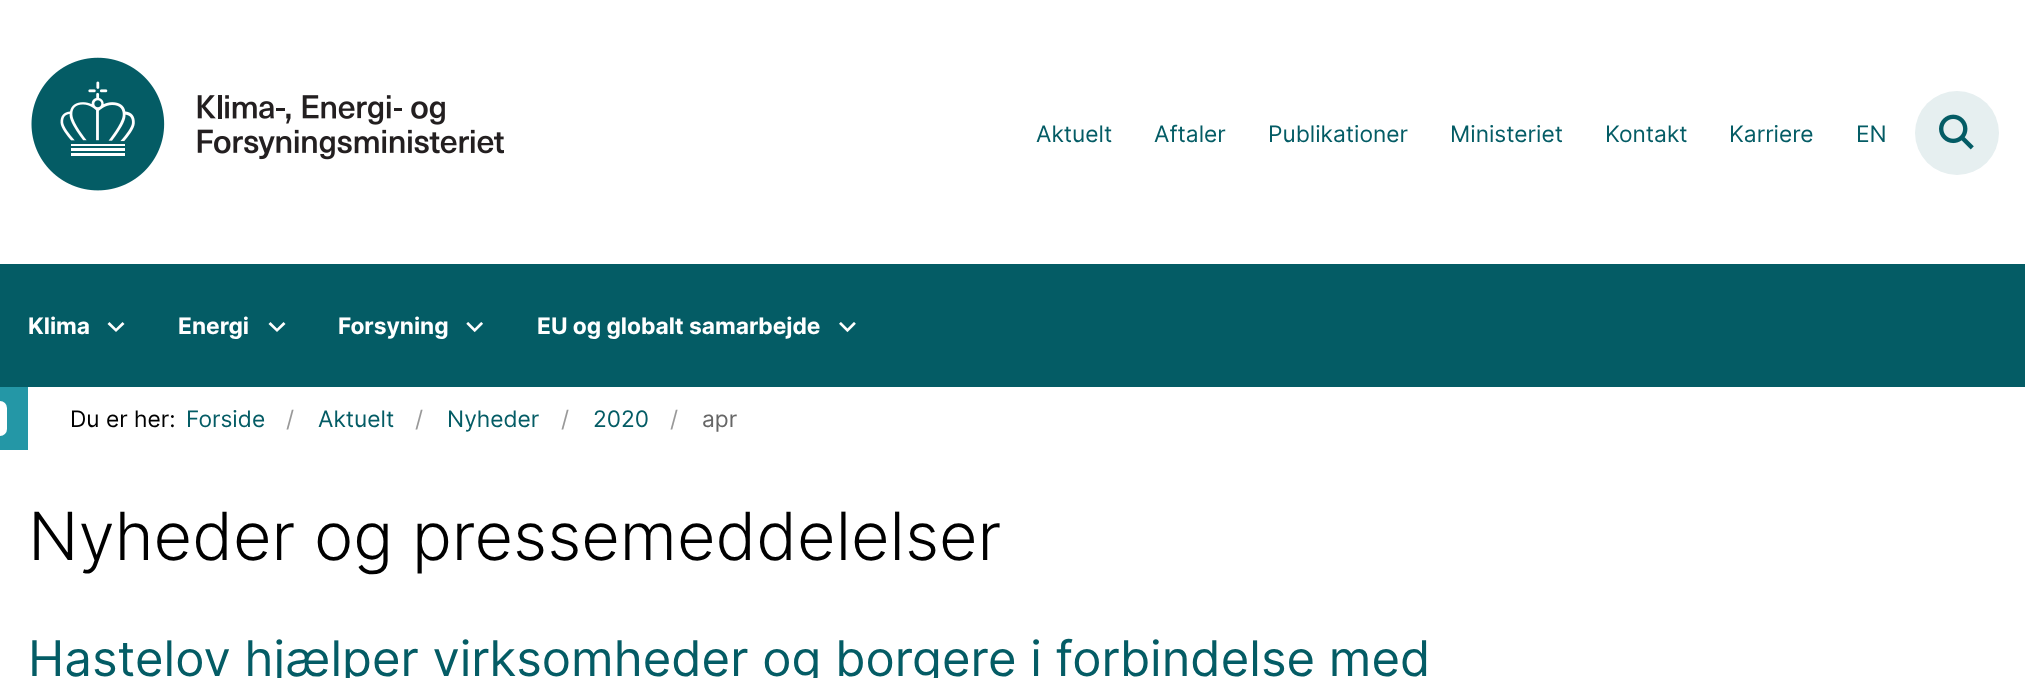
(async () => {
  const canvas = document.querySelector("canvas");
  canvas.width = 2025;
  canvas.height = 678;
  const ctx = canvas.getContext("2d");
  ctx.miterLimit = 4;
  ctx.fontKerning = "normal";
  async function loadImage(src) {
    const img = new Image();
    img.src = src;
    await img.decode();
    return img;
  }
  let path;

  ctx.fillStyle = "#ffffff";
  ctx.fillRect(0, 0, 2025, 678);
  ctx.drawImage(await loadImage("img/1.png"), 31, 57, 473, 134);
  ctx.fillStyle = "#e6eff0";
  ctx.beginPath();
  ctx.arc(1957, 133, 42, 0, Math.PI * 2);
  ctx.fill();
  ctx.drawImage(await loadImage("img/2.png"), 1939, 114, 35, 36);
  ctx.fillStyle = "#045c65";
  ctx.fillRect(0, 264, 2025, 123);
  ctx.fillStyle = "#ffffff";
  path = new Path2D("M116 332L124.5 324L122.5 322L116 328.5L109.5 322L107.5 324Z");
  ctx.fill(path);
  path = new Path2D("M277 332L285.5 324L283.5 322L277 328.5L270.5 322L268.5 324Z");
  ctx.fill(path);
  ctx.drawImage(await loadImage("img/3.png"), 466, 322, 17, 11);
  ctx.drawImage(await loadImage("img/4.png"), 839, 322, 17, 11);
  ctx.fillStyle = "#2497a6";
  ctx.fillRect(0, 387, 28, 63);
  ctx.fillStyle = "#ffffff";
  ctx.beginPath();
  ctx.roundRect(0, 401, 7, 35, [0, 17.5, 17.5, 0]);
  ctx.fill();
  ctx.font = "22.75px Inter";
  ctx.fillStyle = "#045c65";
  for (const [text, x, y] of [
    ["Aktuelt", 1036, 142],
    ["Aftaler", 1154, 142],
    ["Publikationer", 1268, 142],
    ["Ministeriet", 1450, 142],
    ["Kontakt", 1605, 142],
    ["Karriere", 1729, 142],
    ["EN", 1856, 142],
  ]) {
    ctx.fillText(text, x, y);
  }
  ctx.font = "bold 22.75px Inter";
  ctx.fillStyle = "#ffffff";
  for (const [text, x, y] of [
    ["Klima", 28, 334],
    ["Energi", 178, 334],
    ["Forsyning", 338, 334],
    ["EU og globalt samarbejde", 537, 334],
  ]) {
    ctx.fillText(text, x, y);
  }
  ctx.font = "22.75px Inter";
  ctx.fillStyle = "#000000";
  ctx.fillText("Du er her:", 70, 427);
  ctx.fillStyle = "#045c65";
  ctx.fillText("Forside", 186, 427);
  ctx.fillStyle = "#999999";
  ctx.fillText("/", 286, 427);
  ctx.fillStyle = "#045c65";
  ctx.fillText("Aktuelt", 318, 427);
  ctx.fillStyle = "#999999";
  ctx.fillText("/", 415, 427);
  ctx.fillStyle = "#045c65";
  ctx.fillText("Nyheder", 447, 427);
  ctx.fillStyle = "#999999";
  ctx.fillText("/", 561, 427);
  ctx.fillStyle = "#045c65";
  ctx.fillText("2020", 593, 427);
  ctx.fillStyle = "#999999";
  ctx.fillText("/", 670, 427);
  ctx.fillStyle = "#666666";
  ctx.fillText("apr", 702, 427);
  ctx.font = "300 66.5px Inter";
  ctx.fillStyle = "#000000";
  ctx.fillText("Nyheder og pressemeddelelser", 28, 560);
  ctx.font = "49px Inter";
  ctx.fillStyle = "#045c65";
  ctx.fillText("Hastelov hjælper virksomheder og borgere i forbindelse med", 28, 676);
})();
